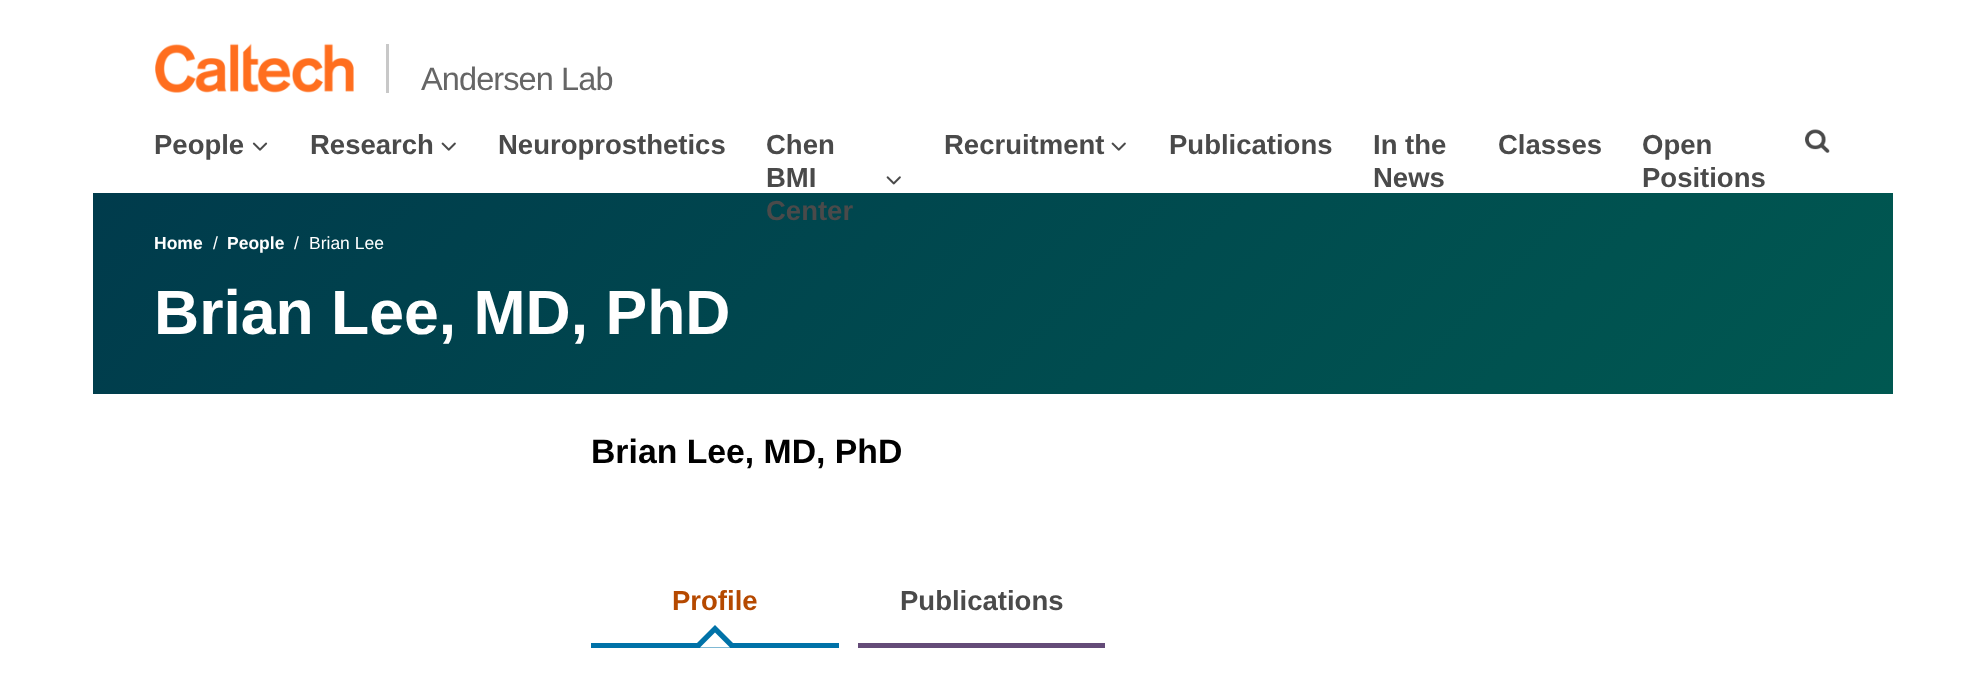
(async () => {
  const canvas = document.querySelector("canvas");
  canvas.width = 1983;
  canvas.height = 692;
  const ctx = canvas.getContext("2d");
  ctx.miterLimit = 4;
  ctx.fontKerning = "normal";
  async function loadImage(src) {
    const img = new Image();
    img.src = src;
    await img.decode();
    return img;
  }
  let gradient, path;

  ctx.fillStyle = "#ffffff";
  ctx.fillRect(0, 0, 1983, 692);
  ctx.drawImage(await loadImage("img/1.png"), 155, 43, 199, 50);
  ctx.fillStyle = "#c8c8c8";
  ctx.fillRect(386, 44, 3, 49);
  ctx.drawImage(await loadImage("img/2.png"), 252, 142, 16, 9);
  ctx.drawImage(await loadImage("img/3.png"), 441, 142, 15, 9);
  ctx.drawImage(await loadImage("img/4.png"), 886, 176, 15, 9);
  ctx.drawImage(await loadImage("img/3.png"), 1111, 142, 15, 9);
  ctx.drawImage(await loadImage("img/5.png"), 1805, 129, 25, 24);
  gradient = ctx.createLinearGradient(477, -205, 1508, 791);
  gradient.addColorStop(0, "#003b4c");
  gradient.addColorStop(1, "#005851");
  ctx.fillStyle = gradient;
  ctx.fillRect(93, 193, 1800, 201);
  ctx.fillStyle = "#0072a8";
  ctx.fillRect(591, 643, 248, 5);
  path = new Path2D("M738 648H692L715 625Z");
  ctx.fill(path);
  ctx.fillStyle = "#ffffff";
  path = new Path2D("M730 647.5H700L715 632.5Z");
  ctx.fill(path);
  ctx.fillStyle = "#644b78";
  ctx.fillRect(858, 643, 247, 5);
  ctx.letterSpacing = "-0.9px";
  ctx.font = "32.5px Liberation Sans";
  ctx.fillStyle = "#666666";
  ctx.fillText("Andersen Lab", 421, 90);
  ctx.letterSpacing = "0px";
  ctx.font = "bold 27.5px Liberation Sans";
  ctx.fillStyle = "#4a4a4a";
  for (const [text, x, y] of [
    ["People", 154, 154],
    ["Research", 310, 154],
    ["Neuroprosthetics", 498, 154],
    ["Chen", 766, 154],
    ["BMI", 766, 187],
    ["Center", 766, 220],
    ["Recruitment", 944, 154],
    ["Publications", 1169, 154],
    ["In the", 1373, 154],
    ["News", 1373, 187],
    ["Classes", 1498, 154],
    ["Open", 1642, 154],
    ["Positions", 1642, 187],
  ]) {
    ctx.fillText(text, x, y);
  }
  ctx.font = "bold 17.5px Liberation Sans";
  ctx.fillStyle = "#ffffff";
  ctx.fillText("Home", 154, 249);
  ctx.font = "17.5px Liberation Sans";
  ctx.fillText("/", 213, 249);
  ctx.font = "bold 17.5px Liberation Sans";
  ctx.fillText("People", 227, 249);
  ctx.font = "17.5px Liberation Sans";
  ctx.fillText("/", 294, 249);
  ctx.fillText("Brian Lee", 309, 249);
  ctx.font = "bold 62.5px Liberation Sans";
  ctx.fillText("Brian Lee, MD, PhD", 154, 334);
  ctx.font = "bold 33.75px Liberation Sans";
  ctx.fillStyle = "#000000";
  ctx.fillText("Brian Lee, MD, PhD", 591, 463);
  ctx.font = "bold 27.5px Liberation Sans";
  ctx.fillStyle = "#b54900";
  ctx.fillText("Profile", 672, 610);
  ctx.fillStyle = "#4a4a4a";
  ctx.fillText("Publications", 900, 610);
})();
